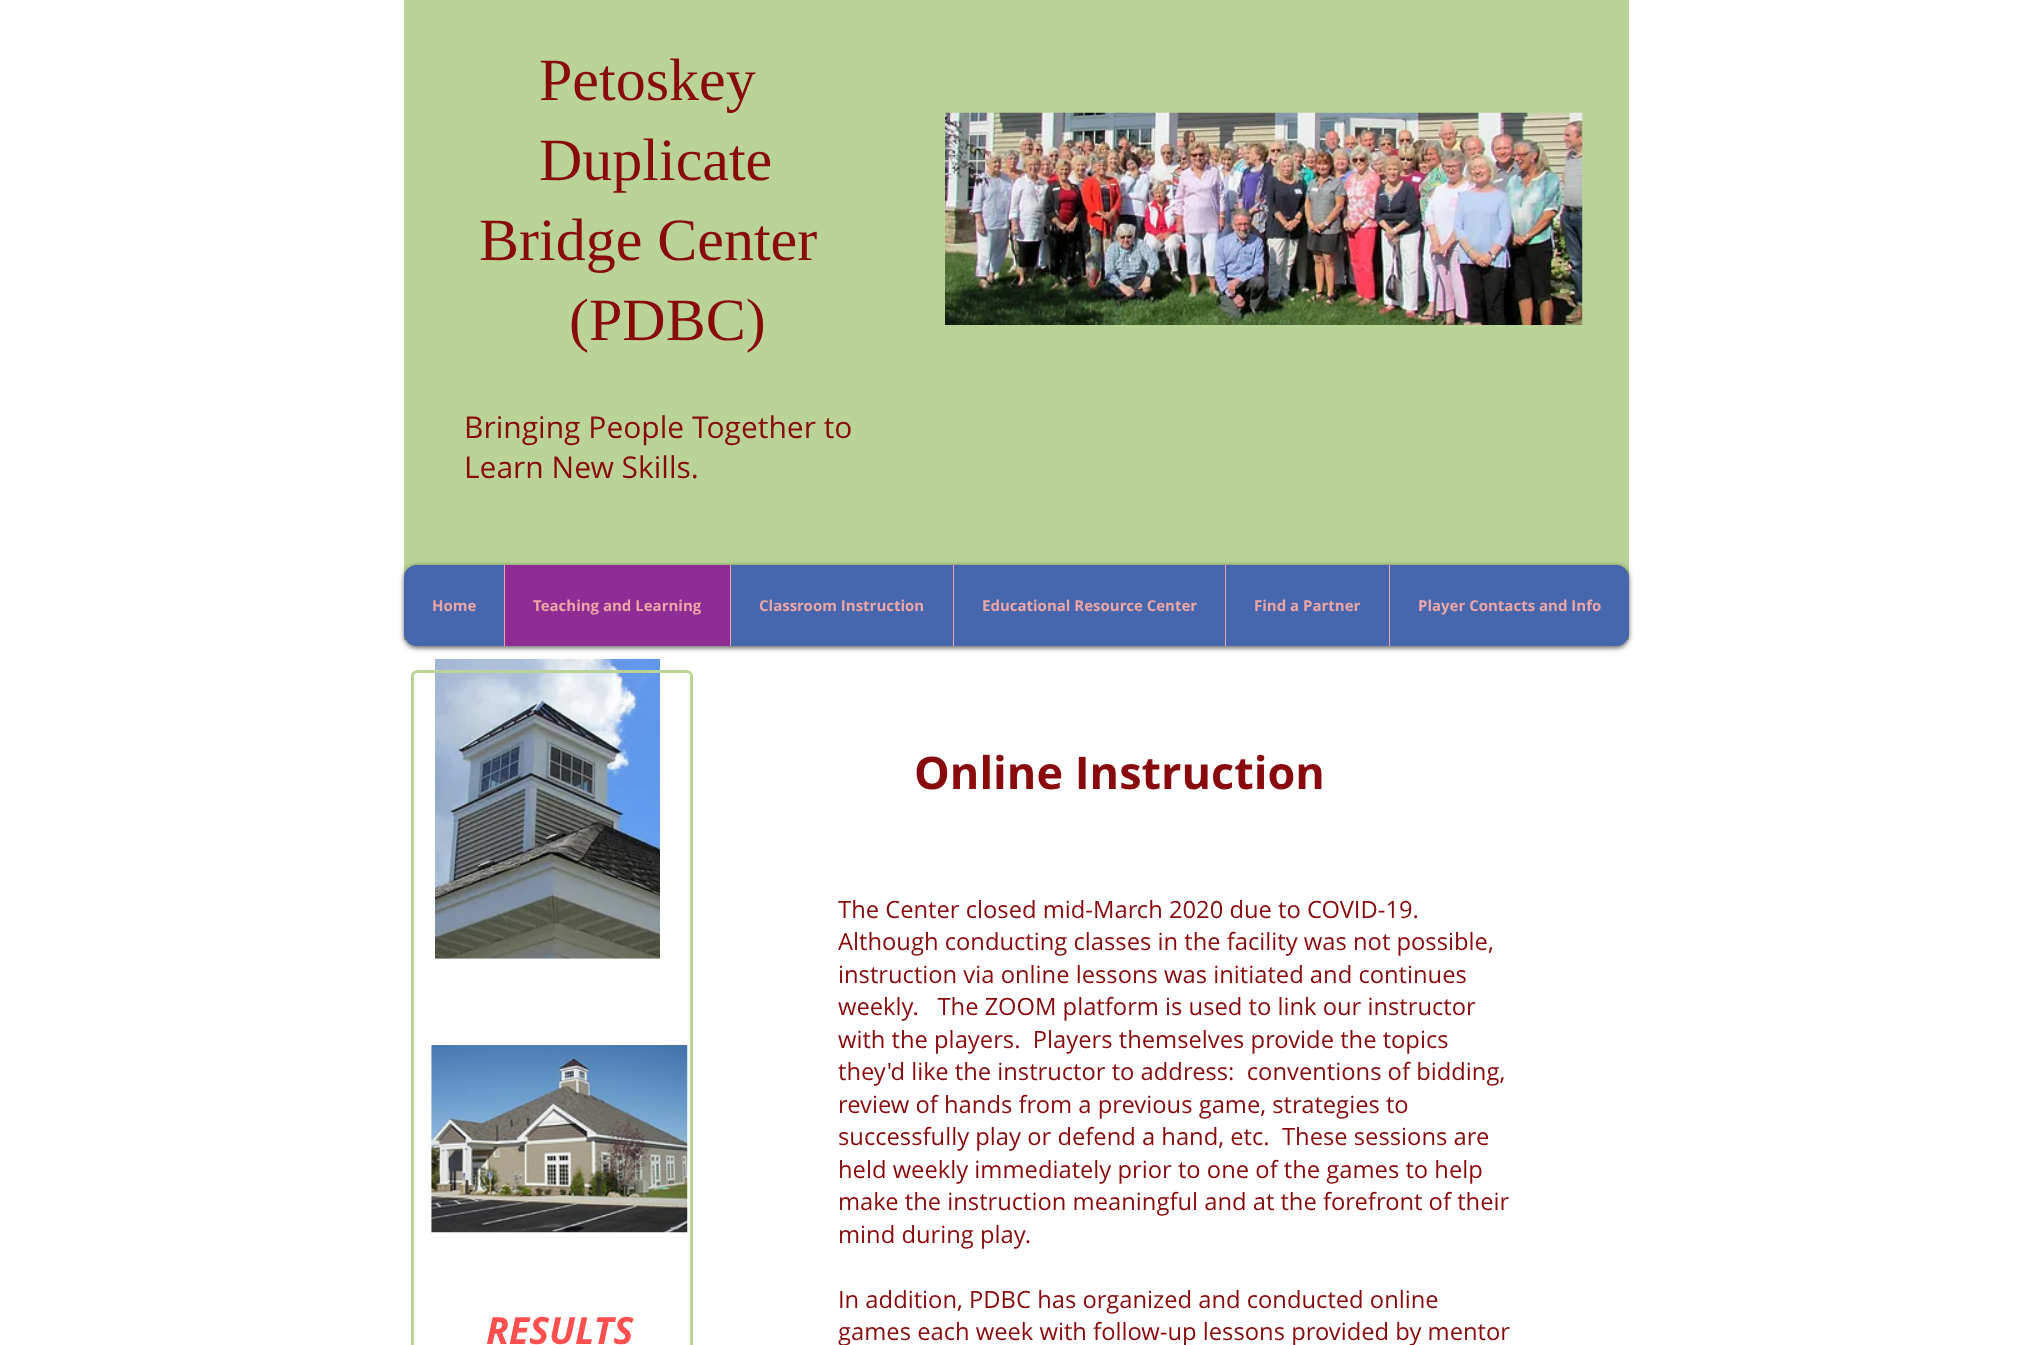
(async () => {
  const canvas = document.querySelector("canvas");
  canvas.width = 2032;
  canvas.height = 1345;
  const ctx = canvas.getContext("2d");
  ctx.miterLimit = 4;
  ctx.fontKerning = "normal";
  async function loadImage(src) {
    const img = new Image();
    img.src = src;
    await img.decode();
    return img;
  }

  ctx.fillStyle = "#ffffff";
  ctx.fillRect(0, 0, 2032, 1345);
  ctx.fillStyle = "#bad497";
  ctx.fillRect(404, 0, 1225, 640);
  ctx.drawImage(await loadImage("img/1.png"), 945, 112, 638, 213);
  ctx.fillStyle = "rgba(0, 0, 0, 0.6)";
  ctx.filter = "blur(2.5px)";
  ctx.beginPath();
  ctx.roundRect(404, 566, 1225, 82, 13);
  ctx.fill();
  ctx.filter = "none";
  ctx.fillStyle = "#4667ad";
  ctx.beginPath();
  ctx.roundRect(404, 565, 1225, 81, 13);
  ctx.fill();
  for (const [x, y, w, h, color] of [
    [505, 565, 225, 81, "#8f2c95"],
    [504, 565, 1, 81, "#eda5a6"],
    [730, 565, 1, 81, "#eda5a6"],
    [953, 565, 1, 81, "#eda5a6"],
    [1225, 565, 1, 81, "#eda5a6"],
    [1389, 565, 1, 81, "#eda5a6"],
  ]) {
    ctx.fillStyle = color;
    ctx.fillRect(x, y, w, h);
  }
  ctx.drawImage(await loadImage("img/2.png"), 435, 658, 225, 301);
  ctx.beginPath();
  ctx.roundRect(412.5, 671.5, 279, 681, 4.5);
  ctx.strokeStyle = "#bad497";
  ctx.lineWidth = 3;
  ctx.stroke();
  ctx.drawImage(await loadImage("img/3.png"), 431, 1045, 257, 188);
  ctx.font = "60px Liberation Serif";
  ctx.fillStyle = "#880a0c";
  for (const [text, x, y] of [
    ["Petoskey", 539, 100],
    ["Duplicate", 539, 180],
    ["Bridge Center", 479, 260],
    ["(PDBC)", 569, 340],
  ]) {
    ctx.fillText(text, x, y);
  }
  ctx.font = "30px Open Sans";
  ctx.fillText("Bringing People Together to", 464, 438);
  ctx.fillText("Learn New Skills.", 464, 478);
  ctx.font = "bold 15px Open Sans";
  ctx.fillStyle = "#eda5a6";
  for (const [text, x, y] of [
    ["Home", 432, 611],
    ["Teaching and Learning", 533, 611],
    ["Classroom Instruction", 759, 611],
    ["Educational Resource Center", 982, 611],
    ["Find a Partner", 1254, 611],
    ["Player Contacts and Info", 1418, 611],
  ]) {
    ctx.fillText(text, x, y);
  }
  ctx.font = "italic bold 37.5px Open Sans";
  ctx.fillStyle = "#ff4f4f";
  ctx.fillText("RESULTS", 486, 1344);
  ctx.font = "bold 45px Open Sans";
  ctx.fillStyle = "#880a0c";
  ctx.fillText("Online Instruction", 914, 789);
  ctx.font = "23.75px Open Sans";
  for (const [text, x, y] of [
    ["The Center closed mid-March 2020 due to COVID-19.", 838, 918],
    ["Although conducting classes in the facility was not possible,", 838, 950],
    ["instruction via online lessons was initiated and continues", 838, 983],
    ["weekly.   The ZOOM platform is used to link our instructor", 838, 1015],
    ["with the players.  Players themselves provide the topics", 838, 1048],
    ["they'd like the instructor to address:  conventions of bidding,", 838, 1080],
    ["review of hands from a previous game, strategies to", 838, 1113],
    ["successfully play or defend a hand, etc.  These sessions are", 838, 1145],
    ["held weekly immediately prior to one of the games to help", 838, 1178],
    ["make the instruction meaningful and at the forefront of their", 838, 1210],
    ["mind during play.", 838, 1243],
    ["In addition, PDBC has organized and conducted online", 838, 1308],
    ["games each week with follow-up lessons provided by mentor", 838, 1340],
  ]) {
    ctx.fillText(text, x, y);
  }
})();
